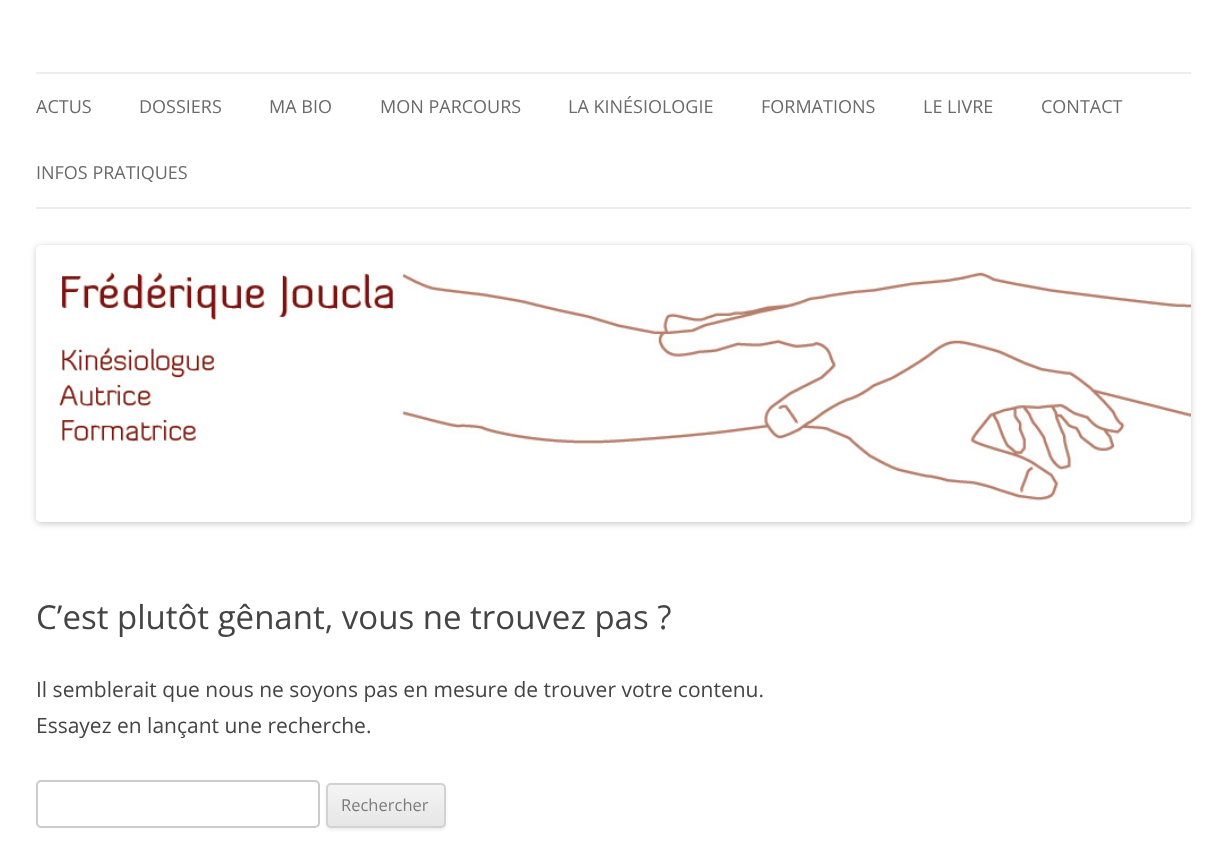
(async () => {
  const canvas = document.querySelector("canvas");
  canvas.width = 1227;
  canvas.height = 863;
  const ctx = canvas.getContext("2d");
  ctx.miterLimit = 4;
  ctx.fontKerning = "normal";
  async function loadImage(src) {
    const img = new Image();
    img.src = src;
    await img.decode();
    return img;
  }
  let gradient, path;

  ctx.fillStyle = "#ffffff";
  ctx.fillRect(0, 0, 1227, 863);
  ctx.fillStyle = "#ededed";
  ctx.fillRect(36, 72, 1155, 2);
  ctx.fillRect(36, 207, 1155, 2);
  ctx.save();
  path = new Path2D("M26 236H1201V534H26ZM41 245H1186C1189 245 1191 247 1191 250V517C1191 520 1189 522 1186 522H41C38 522 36 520 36 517V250C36 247 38 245 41 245Z");
  ctx.clip(path, "evenodd");
  ctx.fillStyle = "rgba(0, 0, 0, 0.2)";
  ctx.filter = "blur(3px)";
  ctx.beginPath();
  ctx.roundRect(36, 246, 1155, 278, 5);
  ctx.fill();
  ctx.filter = "none";
  ctx.restore();
  ctx.drawImage(await loadImage("img/1.png"), 36, 272, 1155, 250);
  ctx.beginPath();
  ctx.roundRect(37, 781, 282, 46, 4);
  ctx.strokeStyle = "#cccccc";
  ctx.lineWidth = 2;
  ctx.stroke();
  ctx.fillStyle = "rgba(64, 64, 64, 0.1)";
  ctx.filter = "blur(1.5px)";
  ctx.beginPath();
  ctx.roundRect(326, 785, 120, 45, 5);
  ctx.fill();
  ctx.filter = "none";
  ctx.save();
  ctx.beginPath();
  ctx.roundRect(326, 783, 120, 45, 5);
  ctx.clip();
  gradient = ctx.createLinearGradient(386, 785, 386, 827);
  gradient.addColorStop(0, "#f4f4f4");
  gradient.addColorStop(1, "#e6e6e6");
  ctx.fillStyle = gradient;
  ctx.fillRect(326, 785, 120, 42);
  ctx.restore();
  ctx.beginPath();
  ctx.roundRect(327, 784, 118, 43, 4);
  ctx.strokeStyle = "#d2d2d2";
  ctx.stroke();
  ctx.font = "18px Open Sans";
  ctx.fillStyle = "#6a6a6a";
  for (const [text, x, y] of [
    ["ACTUS", 36, 113],
    ["DOSSIERS", 139, 113],
    ["MA BIO", 269, 113],
    ["MON PARCOURS", 380, 113],
    ["LA KINÉSIOLOGIE", 568, 113],
    ["FORMATIONS", 761, 113],
    ["LE LIVRE", 923, 113],
    ["CONTACT", 1041, 113],
    ["INFOS PRATIQUES", 36, 179],
  ]) {
    ctx.fillText(text, x, y);
  }
  ctx.font = "33px Open Sans";
  ctx.fillStyle = "#444444";
  ctx.fillText("C’est plutôt gênant, vous ne trouvez pas ?", 36, 629);
  ctx.font = "21px Open Sans";
  ctx.fillText("Il semblerait que nous ne soyons pas en mesure de trouver votre contenu.", 36, 697);
  ctx.fillText("Essayez en lançant une recherche.", 36, 733);
  ctx.font = "16.5px Open Sans";
  ctx.fillStyle = "#7c7c7c";
  ctx.fillText("Rechercher", 341, 811);
})();
